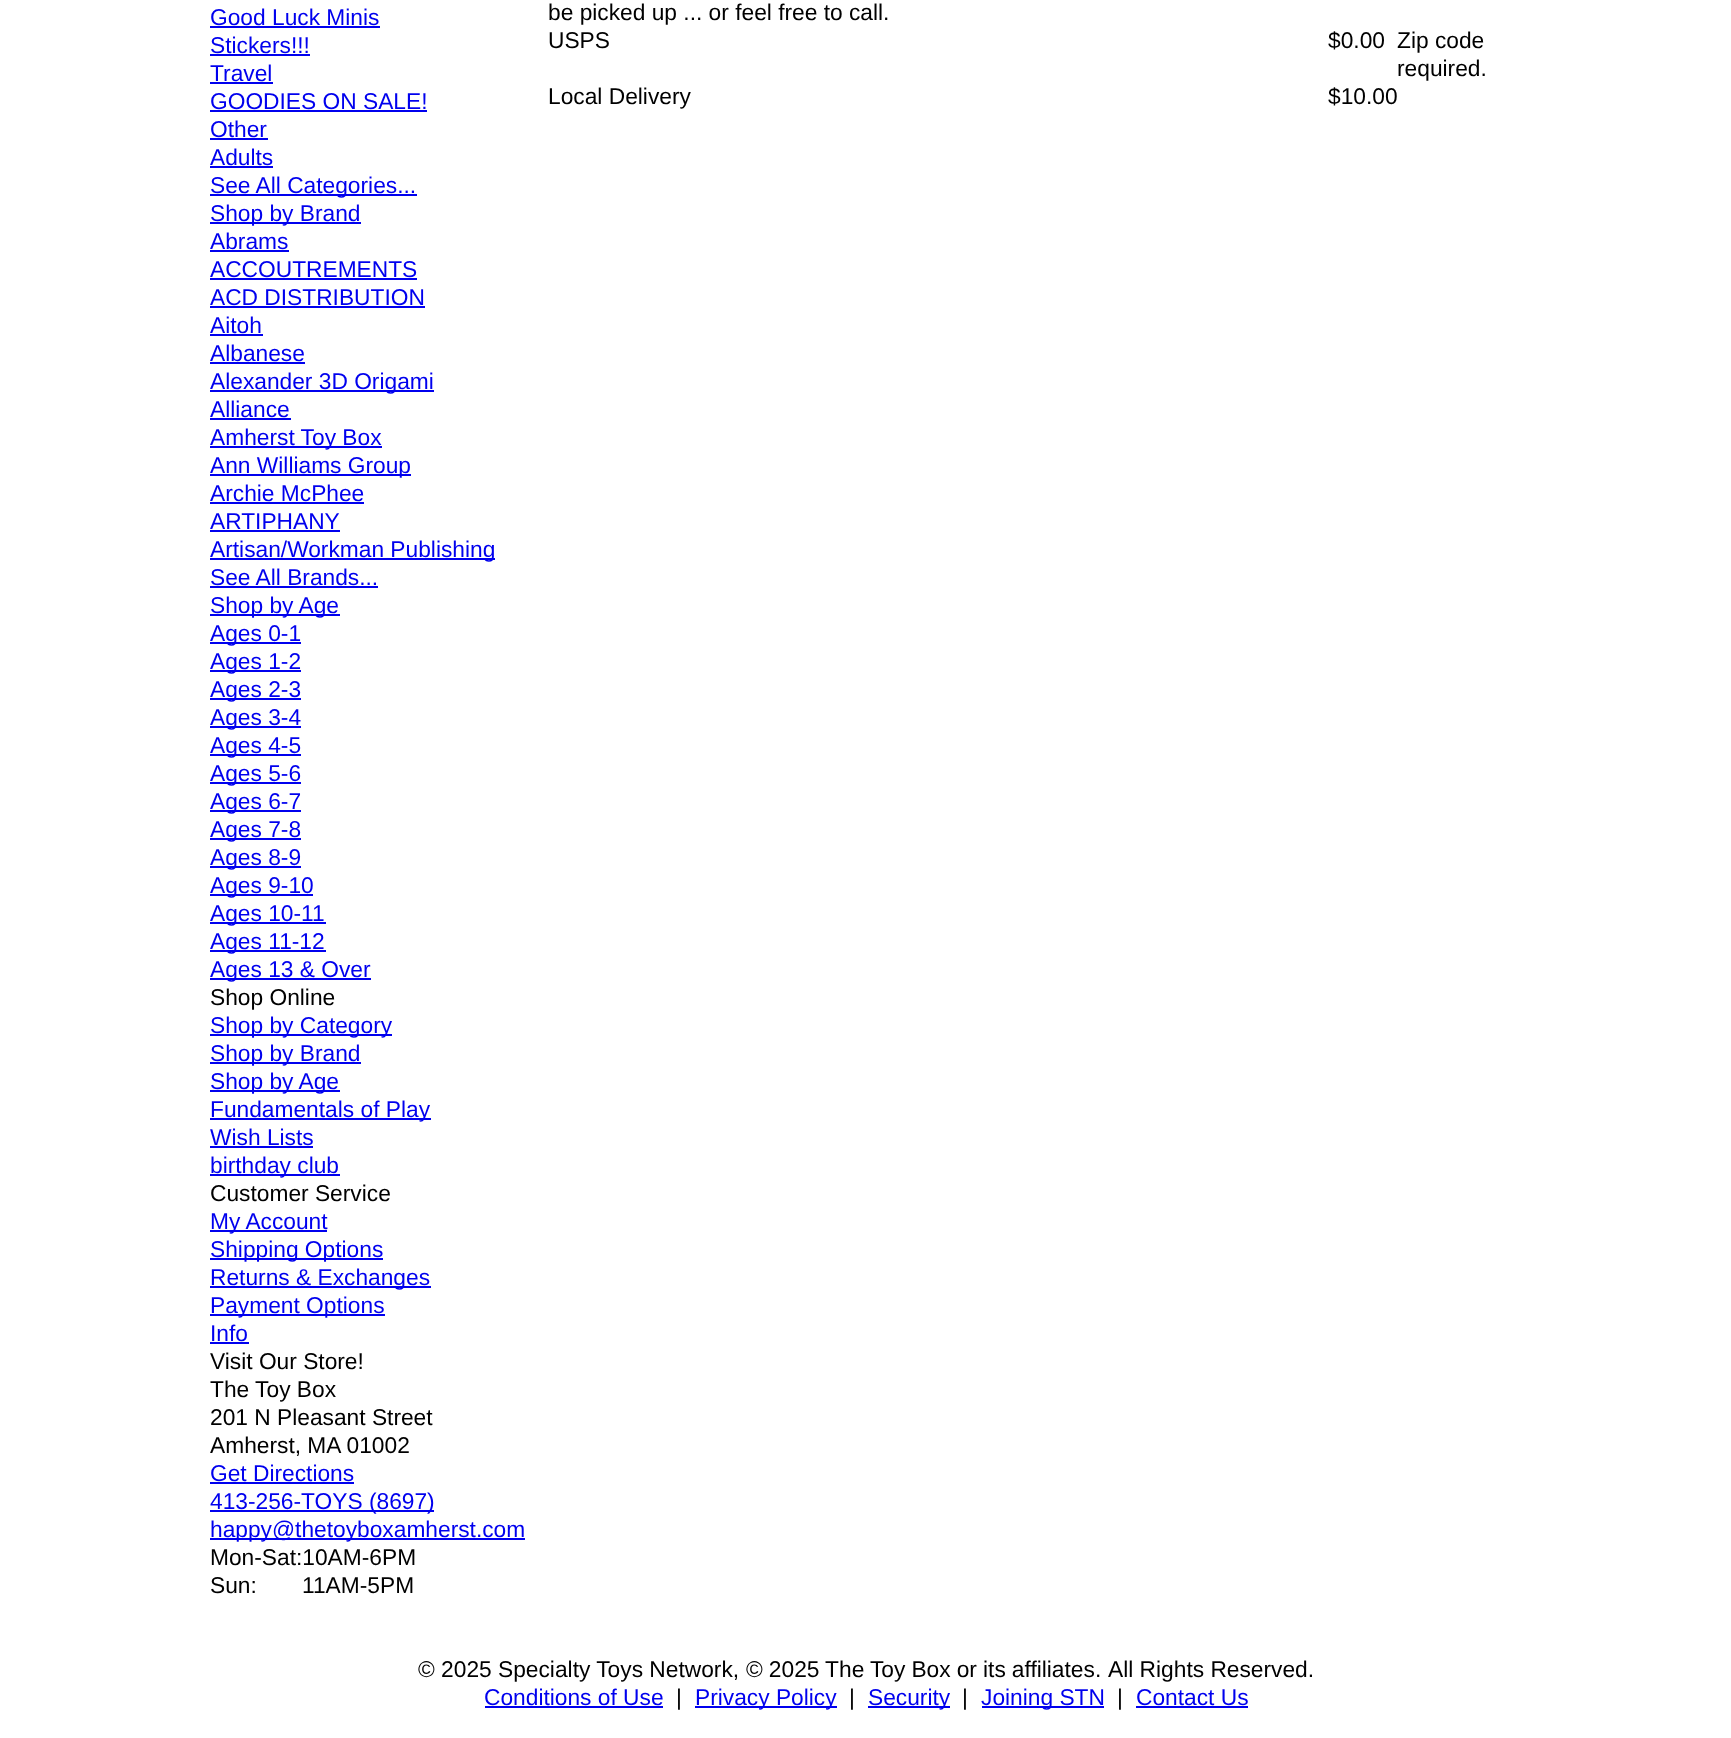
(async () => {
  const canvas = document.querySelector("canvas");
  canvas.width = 1731;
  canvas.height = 1738;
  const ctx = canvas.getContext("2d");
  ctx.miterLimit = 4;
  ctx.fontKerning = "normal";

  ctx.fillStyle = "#ffffff";
  ctx.fillRect(0, 0, 1731, 1738);
  for (const [x, y, w, h, color] of [
    [210, 26, 170, 2, "#0000ee"],
    [210, 54, 100, 2, "#0000ee"],
    [210, 82, 63, 2, "#0000ee"],
    [210, 110, 217, 2, "#0000ee"],
    [210, 138, 58, 2, "#0000ee"],
    [210, 166, 63, 2, "#0000ee"],
    [210, 194, 207, 2, "#0000ee"],
    [210, 222, 151, 2, "#0000ee"],
    [210, 250, 79, 2, "#0000ee"],
    [210, 278, 207, 2, "#0000ee"],
    [210, 306, 215, 2, "#0000ee"],
    [210, 334, 53, 2, "#0000ee"],
    [210, 362, 95, 2, "#0000ee"],
    [210, 390, 224, 2, "#0000ee"],
    [210, 418, 81, 2, "#0000ee"],
    [210, 446, 172, 2, "#0000ee"],
    [210, 474, 201, 2, "#0000ee"],
    [210, 502, 154, 2, "#0000ee"],
    [210, 530, 130, 2, "#0000ee"],
    [210, 558, 285, 2, "#0000ee"],
    [210, 586, 168, 2, "#0000ee"],
    [210, 614, 130, 2, "#0000ee"],
    [210, 642, 91, 2, "#0000ee"],
    [210, 670, 91, 2, "#0000ee"],
    [210, 698, 91, 2, "#0000ee"],
    [210, 726, 91, 2, "#0000ee"],
    [210, 754, 91, 2, "#0000ee"],
    [210, 782, 91, 2, "#0000ee"],
    [210, 810, 91, 2, "#0000ee"],
    [210, 838, 91, 2, "#0000ee"],
    [210, 866, 91, 2, "#0000ee"],
    [210, 894, 103, 2, "#0000ee"],
    [210, 922, 116, 2, "#0000ee"],
    [210, 950, 116, 2, "#0000ee"],
    [210, 978, 161, 2, "#0000ee"],
    [210, 1034, 182, 2, "#0000ee"],
    [210, 1062, 151, 2, "#0000ee"],
    [210, 1090, 130, 2, "#0000ee"],
    [210, 1118, 221, 2, "#0000ee"],
    [210, 1146, 103, 2, "#0000ee"],
    [210, 1174, 130, 2, "#0000ee"],
    [210, 1230, 117, 2, "#0000ee"],
    [210, 1258, 173, 2, "#0000ee"],
    [210, 1286, 221, 2, "#0000ee"],
    [210, 1314, 175, 2, "#0000ee"],
    [210, 1342, 39, 2, "#0000ee"],
    [210, 1482, 144, 2, "#0000ee"],
    [210, 1510, 224, 2, "#0000ee"],
    [210, 1538, 315, 2, "#0000ee"],
    [485, 1706, 178, 2, "#0000ee"],
    [695, 1706, 142, 2, "#0000ee"],
    [868, 1706, 82, 2, "#0000ee"],
    [982, 1706, 122, 2, "#0000ee"],
    [1136, 1706, 112, 2, "#0000ee"],
  ]) {
    ctx.fillStyle = color;
    ctx.fillRect(x, y, w, h);
  }
  ctx.font = "22.75px Liberation Sans";
  for (const [text, x, y] of [
    ["Good Luck Minis", 210, 25],
    ["Stickers!!!", 210, 53],
    ["Travel", 210, 81],
    ["GOODIES ON SALE!", 210, 109],
    ["Other", 210, 137],
    ["Adults", 210, 165],
    ["See All Categories...", 210, 193],
    ["Shop by Brand", 210, 221],
    ["Abrams", 210, 249],
    ["ACCOUTREMENTS", 210, 277],
    ["ACD DISTRIBUTION", 210, 305],
    ["Aitoh", 210, 333],
    ["Albanese", 210, 361],
    ["Alexander 3D Origami", 210, 389],
    ["Alliance", 210, 417],
    ["Amherst Toy Box", 210, 445],
    ["Ann Williams Group", 210, 473],
    ["Archie McPhee", 210, 501],
    ["ARTIPHANY", 210, 529],
    ["Artisan/Workman Publishing", 210, 557],
    ["See All Brands...", 210, 585],
    ["Shop by Age", 210, 613],
    ["Ages 0-1", 210, 641],
    ["Ages 1-2", 210, 669],
    ["Ages 2-3", 210, 697],
    ["Ages 3-4", 210, 725],
    ["Ages 4-5", 210, 753],
    ["Ages 5-6", 210, 781],
    ["Ages 6-7", 210, 809],
    ["Ages 7-8", 210, 837],
    ["Ages 8-9", 210, 865],
    ["Ages 9-10", 210, 893],
    ["Ages 10-11", 210, 921],
    ["Ages 11-12", 210, 949],
    ["Ages 13 & Over", 210, 977],
  ]) {
    ctx.fillText(text, x, y);
  }
  ctx.fillStyle = "#000000";
  for (const [text, x, y] of [
    ["be picked up ... or feel free to call.", 548, 20],
    ["USPS", 548, 48],
    ["$0.00", 1328, 48],
    ["Zip code", 1397, 48],
    ["required.", 1397, 76],
    ["Local Delivery", 548, 104],
    ["$10.00", 1328, 104],
    ["Shop Online", 210, 1005],
  ]) {
    ctx.fillText(text, x, y);
  }
  ctx.fillStyle = "#0000ee";
  for (const [text, x, y] of [
    ["Shop by Category", 210, 1033],
    ["Shop by Brand", 210, 1061],
    ["Shop by Age", 210, 1089],
    ["Fundamentals of Play", 210, 1117],
    ["Wish Lists", 210, 1145],
    ["birthday club", 210, 1173],
  ]) {
    ctx.fillText(text, x, y);
  }
  ctx.fillStyle = "#000000";
  ctx.fillText("Customer Service", 210, 1201);
  ctx.fillStyle = "#0000ee";
  for (const [text, x, y] of [
    ["My Account", 210, 1229],
    ["Shipping Options", 210, 1257],
    ["Returns & Exchanges", 210, 1285],
    ["Payment Options", 210, 1313],
    ["Info", 210, 1341],
  ]) {
    ctx.fillText(text, x, y);
  }
  ctx.fillStyle = "#000000";
  for (const [text, x, y] of [
    ["Visit Our Store!", 210, 1369],
    ["The Toy Box", 210, 1397],
    ["201 N Pleasant Street", 210, 1425],
    ["Amherst, MA 01002", 210, 1453],
  ]) {
    ctx.fillText(text, x, y);
  }
  ctx.fillStyle = "#0000ee";
  for (const [text, x, y] of [
    ["Get Directions", 210, 1481],
    ["413-256-TOYS (8697)", 210, 1509],
    ["happy@thetoyboxamherst.com", 210, 1537],
  ]) {
    ctx.fillText(text, x, y);
  }
  ctx.fillStyle = "#000000";
  for (const [text, x, y] of [
    ["Mon-Sat:10AM-6PM", 210, 1565],
    ["Sun:", 210, 1593],
    ["11AM-5PM", 302, 1593],
    ["© 2025 Specialty Toys Network,", 418, 1677],
  ]) {
    ctx.fillText(text, x, y);
  }
  ctx.wordSpacing = "-0.25px";
  ctx.fillText("© 2025 The Toy Box or its affiliates.", 746, 1677);
  ctx.wordSpacing = "0px";
  ctx.fillText("All Rights Reserved.", 1108, 1677);
  ctx.fillStyle = "#0000ee";
  ctx.fillText("Conditions of Use", 484, 1705);
  ctx.fillStyle = "#000000";
  ctx.fillText("|", 676, 1705);
  ctx.fillStyle = "#0000ee";
  ctx.fillText("Privacy Policy", 695, 1705);
  ctx.fillStyle = "#000000";
  ctx.fillText("|", 849, 1705);
  ctx.fillStyle = "#0000ee";
  ctx.fillText("Security", 868, 1705);
  ctx.fillStyle = "#000000";
  ctx.fillText("|", 962, 1705);
  ctx.fillStyle = "#0000ee";
  ctx.fillText("Joining STN", 981, 1705);
  ctx.fillStyle = "#000000";
  ctx.fillText("|", 1117, 1705);
  ctx.fillStyle = "#0000ee";
  ctx.fillText("Contact Us", 1136, 1705);
})();
